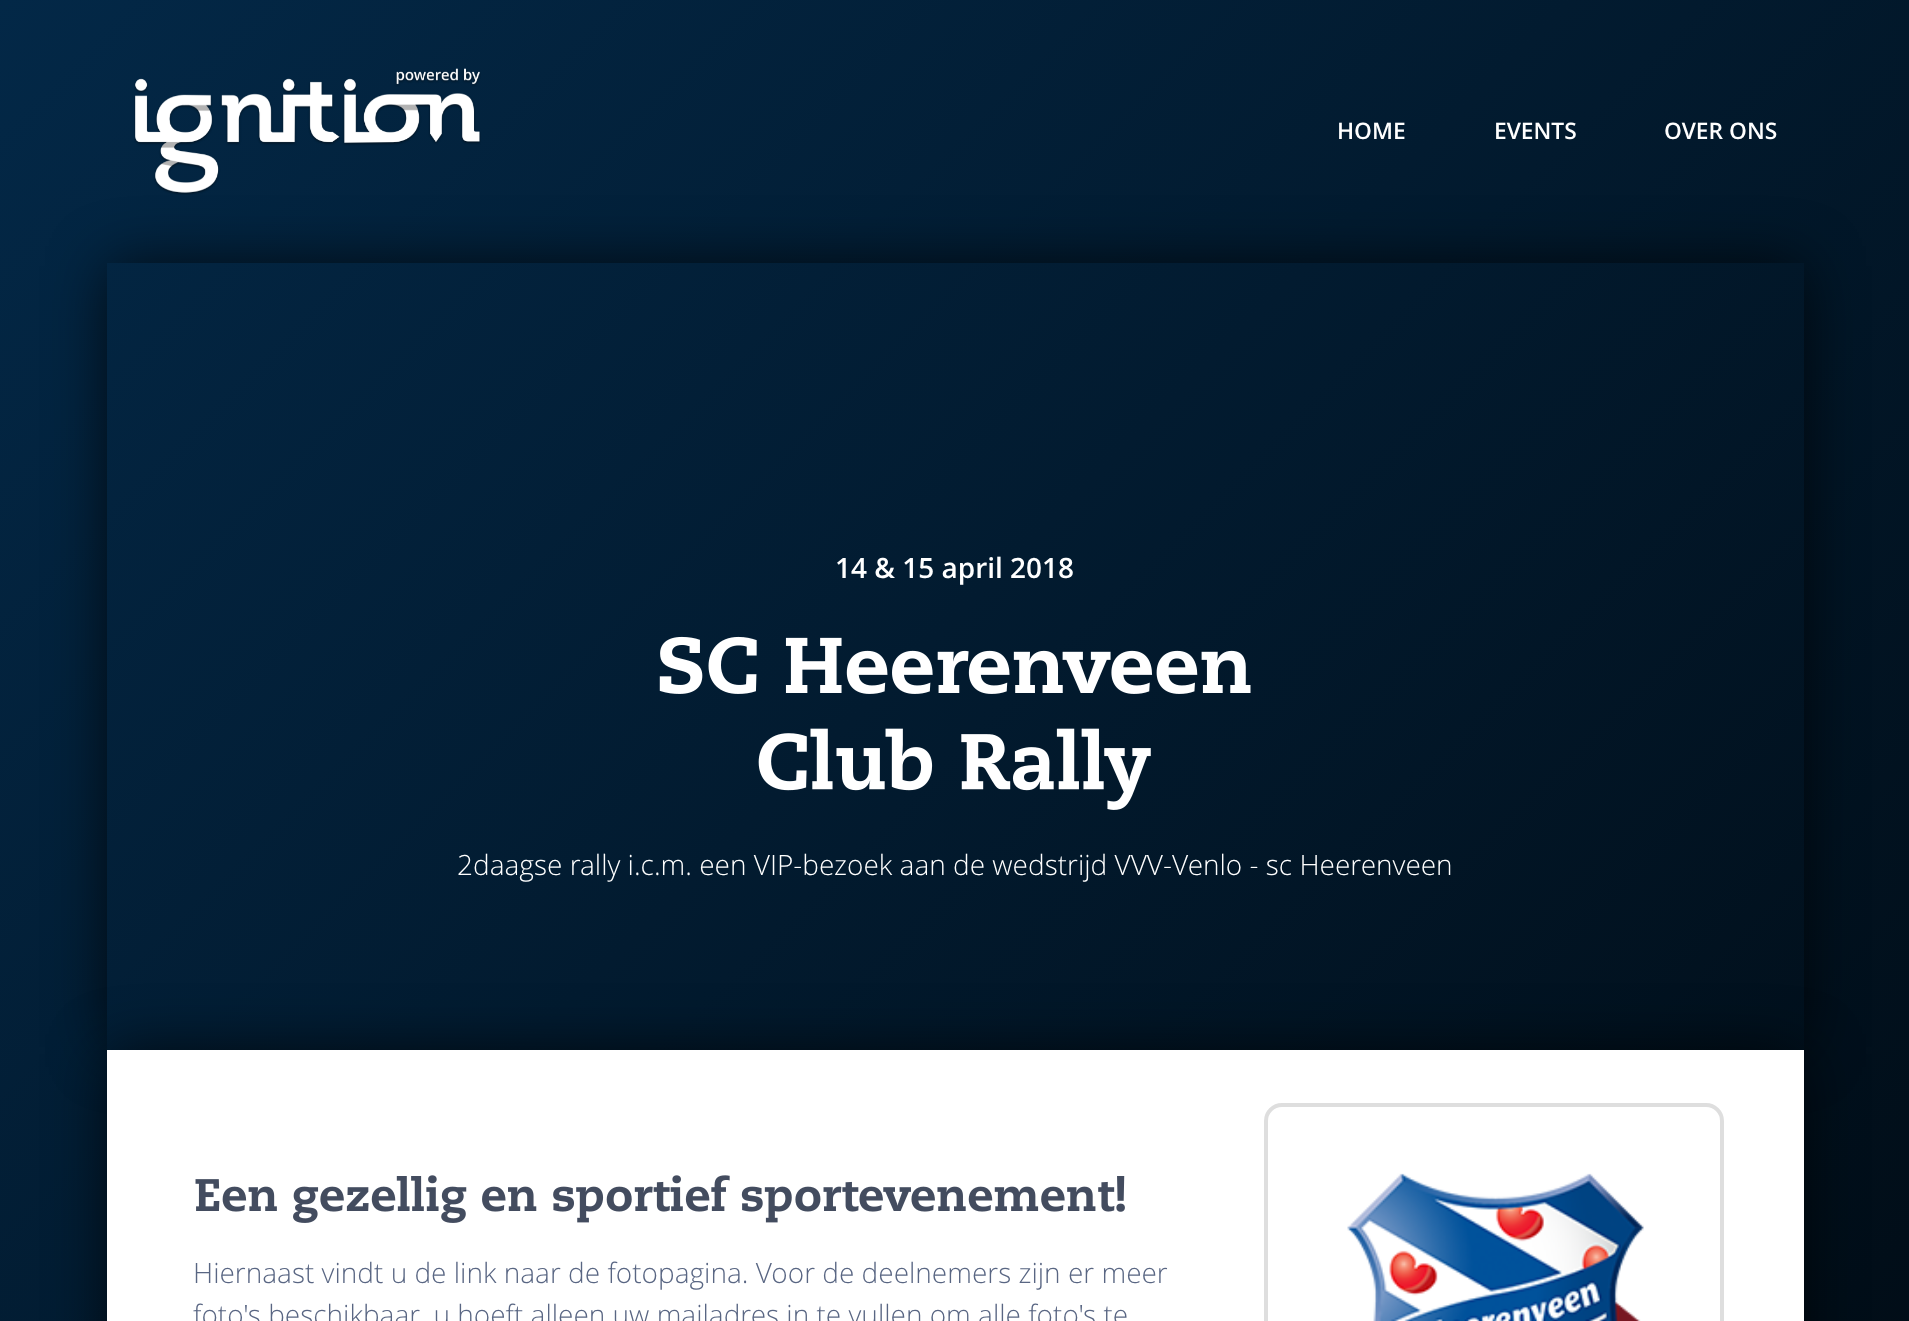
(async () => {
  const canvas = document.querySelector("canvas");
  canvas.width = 1909;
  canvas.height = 1321;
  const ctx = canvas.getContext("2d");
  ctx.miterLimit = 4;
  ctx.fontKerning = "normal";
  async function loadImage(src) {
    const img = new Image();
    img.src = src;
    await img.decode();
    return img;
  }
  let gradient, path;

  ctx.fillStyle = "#ffffff";
  ctx.fillRect(0, 0, 1909, 1321);
  gradient = ctx.createLinearGradient(-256, 256, 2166, 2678);
  gradient.addColorStop(0, "#032847");
  gradient.addColorStop(1, "#000000");
  ctx.fillStyle = gradient;
  ctx.fillRect(0, 0, 1909, 1321);
  ctx.save();
  path = new Path2D("M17 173H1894V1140H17ZM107 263H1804V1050H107Z");
  ctx.clip(path, "evenodd");
  ctx.fillStyle = "rgba(0, 0, 0, 0.75)";
  ctx.filter = "blur(30.5px)";
  ctx.beginPath();
  ctx.rect(110, 266, 1691, 781);
  ctx.fill();
  ctx.filter = "none";
  ctx.restore();
  ctx.drawImage(await loadImage("img/1.png"), 134, 68, 347, 127);
  ctx.drawImage(await loadImage("img/2.png"), 659, 636, 592, 58);
  ctx.drawImage(await loadImage("img/3.png"), 758, 728, 393, 82);
  ctx.fillStyle = "rgba(0, 0, 0, 0.75)";
  ctx.filter = "blur(30.5px)";
  ctx.beginPath();
  ctx.rect(110, 1054, 1691, 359);
  ctx.fill();
  ctx.filter = "none";
  ctx.fillStyle = "#ffffff";
  ctx.fillRect(107, 1050, 1697, 271);
  ctx.drawImage(await loadImage("img/4.png"), 195, 1175, 930, 48);
  ctx.beginPath();
  ctx.roundRect(1266, 1105, 456, 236, 16);
  ctx.strokeStyle = "#dedede";
  ctx.lineWidth = 4;
  ctx.stroke();
  ctx.drawImage(await loadImage("img/5.png"), 1347, 1173, 297, 148);
  ctx.font = "600 22.75px Open Sans";
  for (const [text, x, y] of [
    ["HOME", 1337, 139],
    ["EVENTS", 1494, 139],
    ["OVER ONS", 1664, 139],
  ]) {
    ctx.fillText(text, x, y);
  }
  ctx.font = "600 28px Open Sans";
  ctx.fillText("14 & 15 april 2018", 835, 578);
  ctx.font = "300 28px Open Sans";
  ctx.fillText("2daagse rally i.c.m. een VIP-bezoek aan de wedstrijd VVV-Venlo - sc Heerenveen", 457, 875);
  ctx.fillStyle = "#596683";
  ctx.fillText("Hiernaast vindt u de link naar de fotopagina. Voor de deelnemers zijn er meer", 193, 1283);
  ctx.fillText("foto's beschikbaar, u hoeft alleen uw mailadres in te vullen om alle foto's te", 193, 1325);
})();
